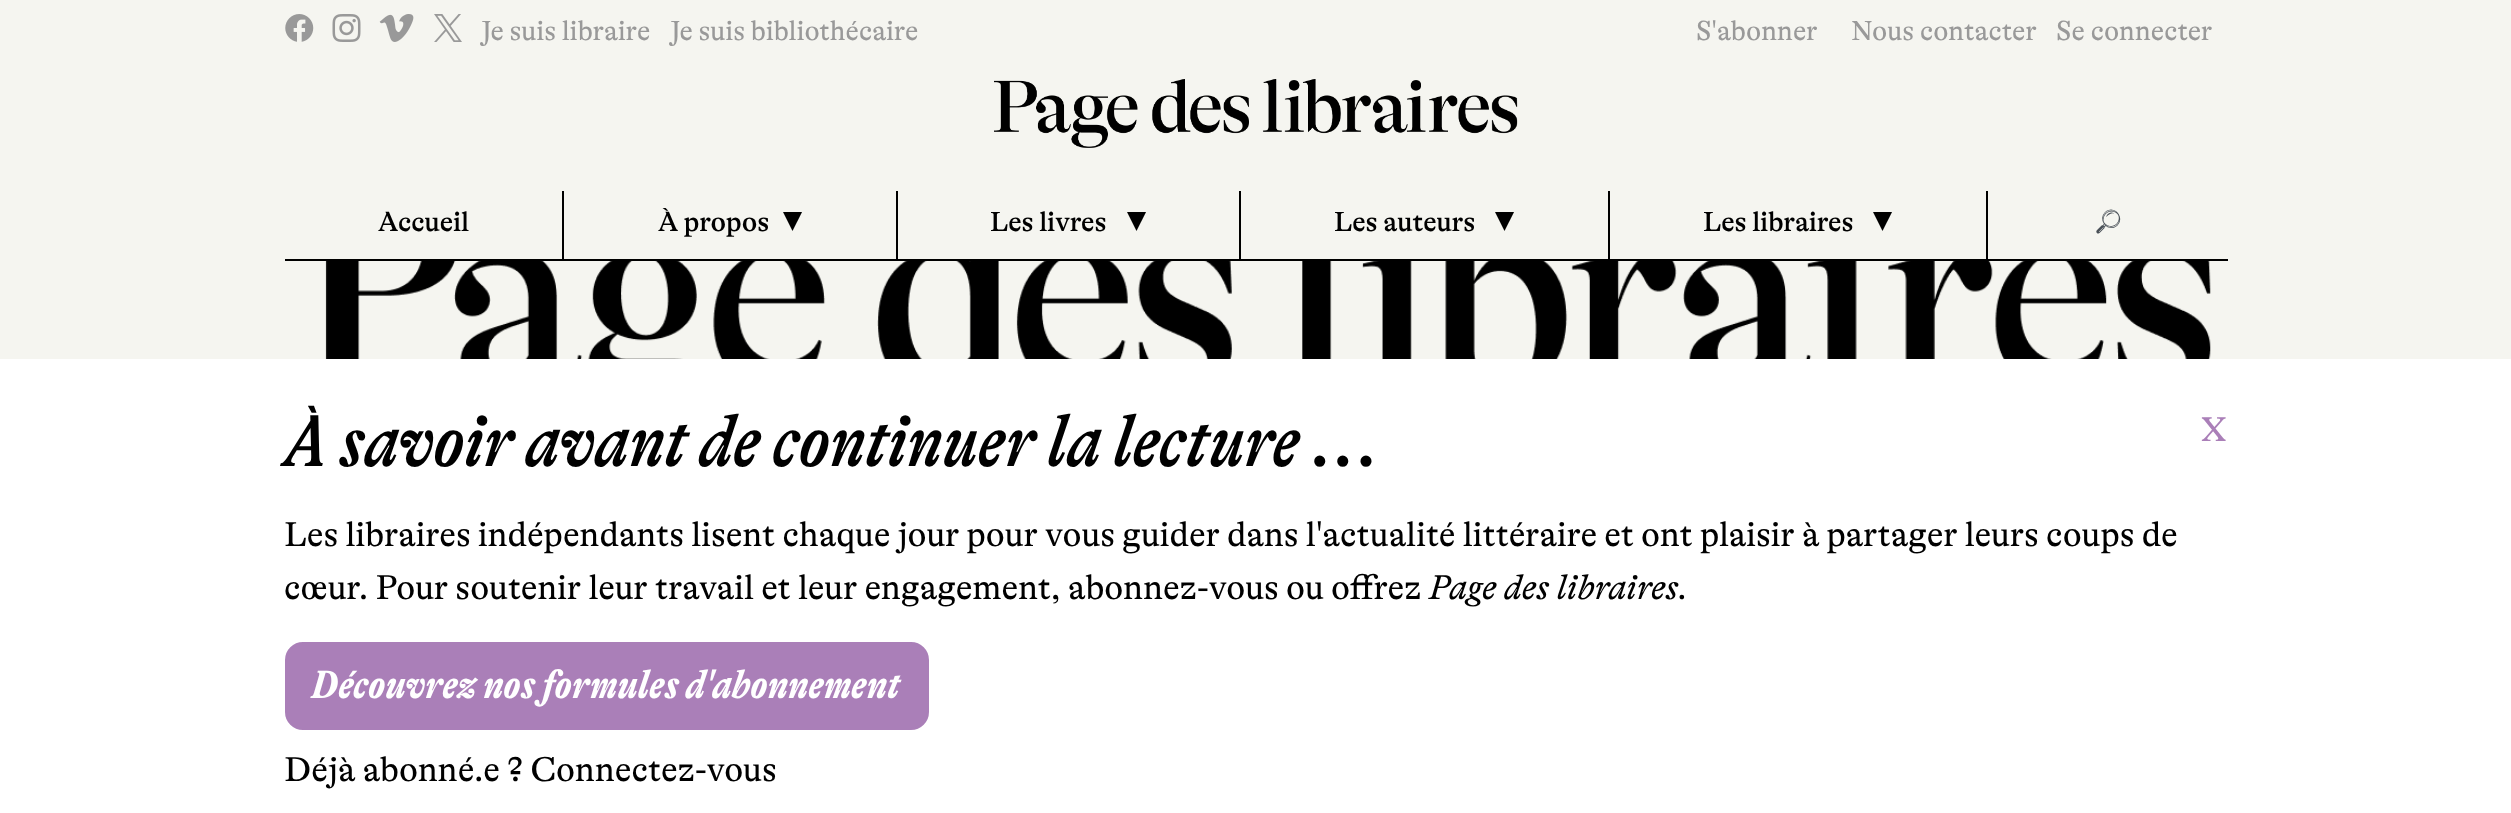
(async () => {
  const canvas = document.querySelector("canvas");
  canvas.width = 2511;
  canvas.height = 813;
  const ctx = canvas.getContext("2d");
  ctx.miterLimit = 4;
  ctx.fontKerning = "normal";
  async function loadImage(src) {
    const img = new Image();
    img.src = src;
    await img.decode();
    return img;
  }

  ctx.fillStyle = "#f5f5f0";
  ctx.fillRect(0, 0, 2511, 813);
  ctx.drawImage(await loadImage("img/1.png"), 285, 14, 29, 28);
  ctx.drawImage(await loadImage("img/2.png"), 332, 14, 29, 28);
  ctx.drawImage(await loadImage("img/3.png"), 379, 14, 35, 28);
  ctx.drawImage(await loadImage("img/4.png"), 434, 14, 28, 28);
  ctx.drawImage(await loadImage("img/5.png"), 994, 79, 524, 69);
  for (const [x, y, w, h, color] of [
    [562, 191, 2, 70, "#000000"],
    [285, 259, 279, 2, "#000000"],
    [896, 191, 2, 70, "#000000"],
    [564, 259, 334, 2, "#000000"],
    [1239, 191, 2, 70, "#000000"],
    [898, 259, 343, 2, "#000000"],
    [1608, 191, 2, 70, "#000000"],
    [1241, 259, 369, 2, "#000000"],
    [1986, 191, 2, 70, "#000000"],
    [1610, 259, 378, 2, "#000000"],
    [1988, 259, 240, 2, "#000000"],
  ]) {
    ctx.fillStyle = color;
    ctx.fillRect(x, y, w, h);
  }
  ctx.drawImage(await loadImage("img/6.png"), 325, 261, 1886, 98);
  ctx.fillStyle = "#ffffff";
  ctx.fillRect(0, 359, 2511, 454);
  ctx.fillStyle = "#aa7fb8";
  ctx.beginPath();
  ctx.roundRect(286, 643, 642, 86, 17);
  ctx.fill();
  ctx.strokeStyle = "#aa7fb8";
  ctx.lineWidth = 2;
  ctx.stroke();
  ctx.font = "28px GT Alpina";
  ctx.fillStyle = "#999999";
  for (const [text, x, y] of [
    ["Je suis libraire", 481, 40],
    ["Je suis bibliothécaire", 670, 40],
    ["S'abonner", 1696, 40],
    ["Nous contacter", 1851, 40],
    ["Se connecter", 2056, 40],
  ]) {
    ctx.fillText(text, x, y);
  }
  ctx.font = "500 28px GT Alpina";
  ctx.fillStyle = "#000000";
  for (const [text, x, y] of [
    ["Accueil", 378, 231],
    ["À propos", 658, 231],
    ["▼", 783, 231],
    ["Les livres", 990, 231],
    ["▼", 1127, 231],
    ["Les auteurs", 1334, 231],
    ["▼", 1495, 231],
    ["Les libraires", 1703, 231],
    ["▼", 1873, 231],
  ]) {
    ctx.fillText(text, x, y);
  }
  ctx.font = "26px GT Alpina";
  ctx.fillStyle = "#495057";
  ctx.fillText("🔎", 2095, 231);
  ctx.font = "italic 500 73.5px GT Alpina";
  ctx.fillStyle = "#000000";
  ctx.fillText("À savoir avant de continuer la lecture ...", 284, 466);
  ctx.font = "35px GT Alpina";
  ctx.fillStyle = "#aa7fb8";
  ctx.fillText("X", 2201, 441);
  ctx.fillStyle = "#000000";
  ctx.fillText("Les libraires indépendants lisent chaque jour pour vous guider dans l'actualité littéraire et ont plaisir à partager leurs coups de", 284, 546);
  ctx.fillText("cœur. Pour soutenir leur travail et leur engagement, abonnez-vous ou offrez", 284, 599);
  ctx.font = "italic 35px GT Alpina";
  ctx.fillText("Page des libraires.", 1429, 599);
  ctx.letterSpacing = "0.4px";
  ctx.font = "italic bold 40.25px GT Alpina";
  ctx.fillStyle = "#ffffff";
  ctx.fillText("Découvrez nos formules d'abonnement", 312, 698);
  ctx.letterSpacing = "0px";
  ctx.font = "35px GT Alpina";
  ctx.fillStyle = "#000000";
  ctx.fillText("Déjà abonné.e ? Connectez-vous", 284, 781);
})();
